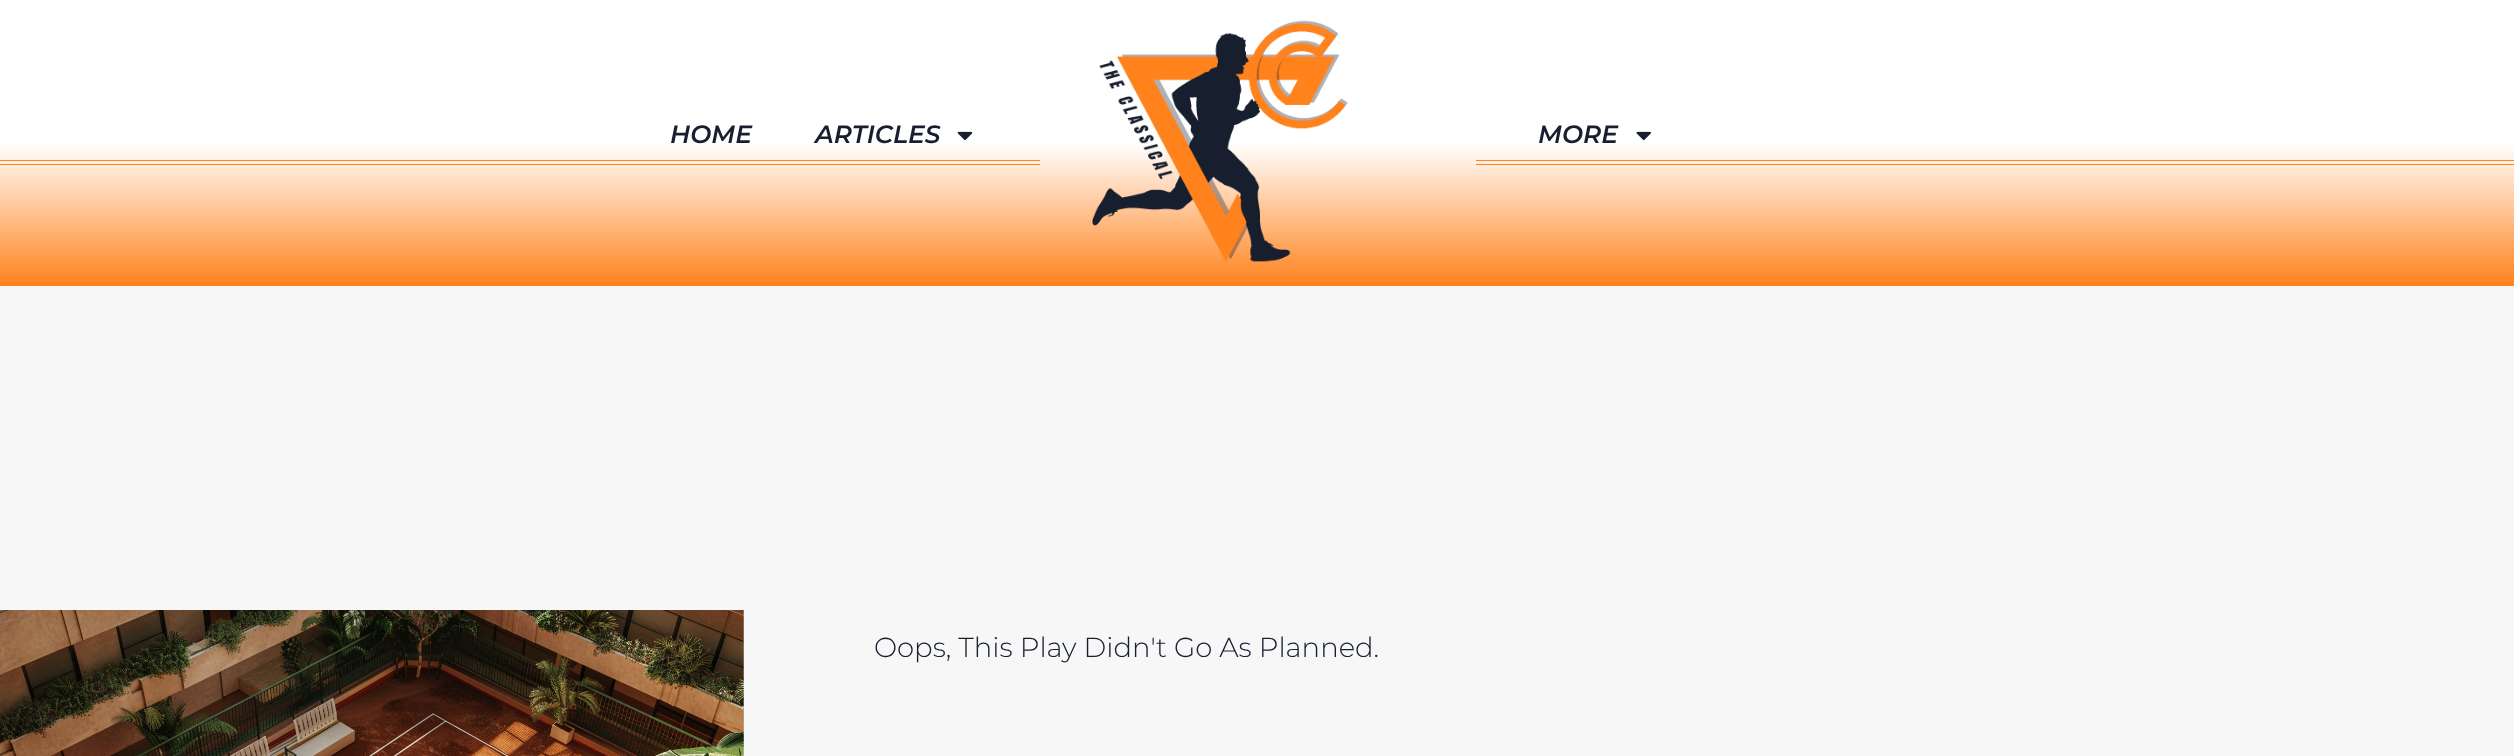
(async () => {
  const canvas = document.querySelector("canvas");
  canvas.width = 2514;
  canvas.height = 756;
  const ctx = canvas.getContext("2d");
  ctx.miterLimit = 4;
  ctx.fontKerning = "normal";
  async function loadImage(src) {
    const img = new Image();
    img.src = src;
    await img.decode();
    return img;
  }
  let gradient;

  ctx.fillStyle = "#ffffff";
  ctx.fillRect(0, 0, 2514, 756);
  gradient = ctx.createLinearGradient(1258, 0, 1258, 286);
  gradient.addColorStop(0.5, "#ffffff");
  gradient.addColorStop(1, "#ff821c");
  ctx.fillStyle = gradient;
  ctx.fillRect(0, 145, 2514, 141);
  ctx.fillStyle = "#fc841c";
  ctx.fillRect(0, 160, 1040, 1);
  ctx.fillRect(0, 164, 1040, 1);
  ctx.drawImage(await loadImage("img/1.png"), 957, 131, 16, 10);
  ctx.drawImage(await loadImage("img/2.png"), 1092, 20, 256, 242);
  ctx.fillRect(1476, 160, 1038, 1);
  ctx.fillRect(1476, 164, 1038, 1);
  ctx.drawImage(await loadImage("img/3.png"), 1636, 131, 15, 10);
  ctx.fillStyle = "#f7f7f7";
  ctx.fillRect(0, 286, 2514, 470);
  ctx.drawImage(await loadImage("img/4.png"), 0, 610, 744, 146);
  ctx.font = "italic 600 25px Montserrat";
  ctx.fillStyle = "#171e2e";
  for (const [text, x, y] of [
    ["HOME", 670, 143],
    ["ARTICLES", 815, 143],
    ["MORE", 1538, 143],
  ]) {
    ctx.fillText(text, x, y);
  }
  ctx.font = "300 27.5px Montserrat";
  ctx.fillText("Oops, This Play Didn't Go As Planned.", 874, 657);
})();
